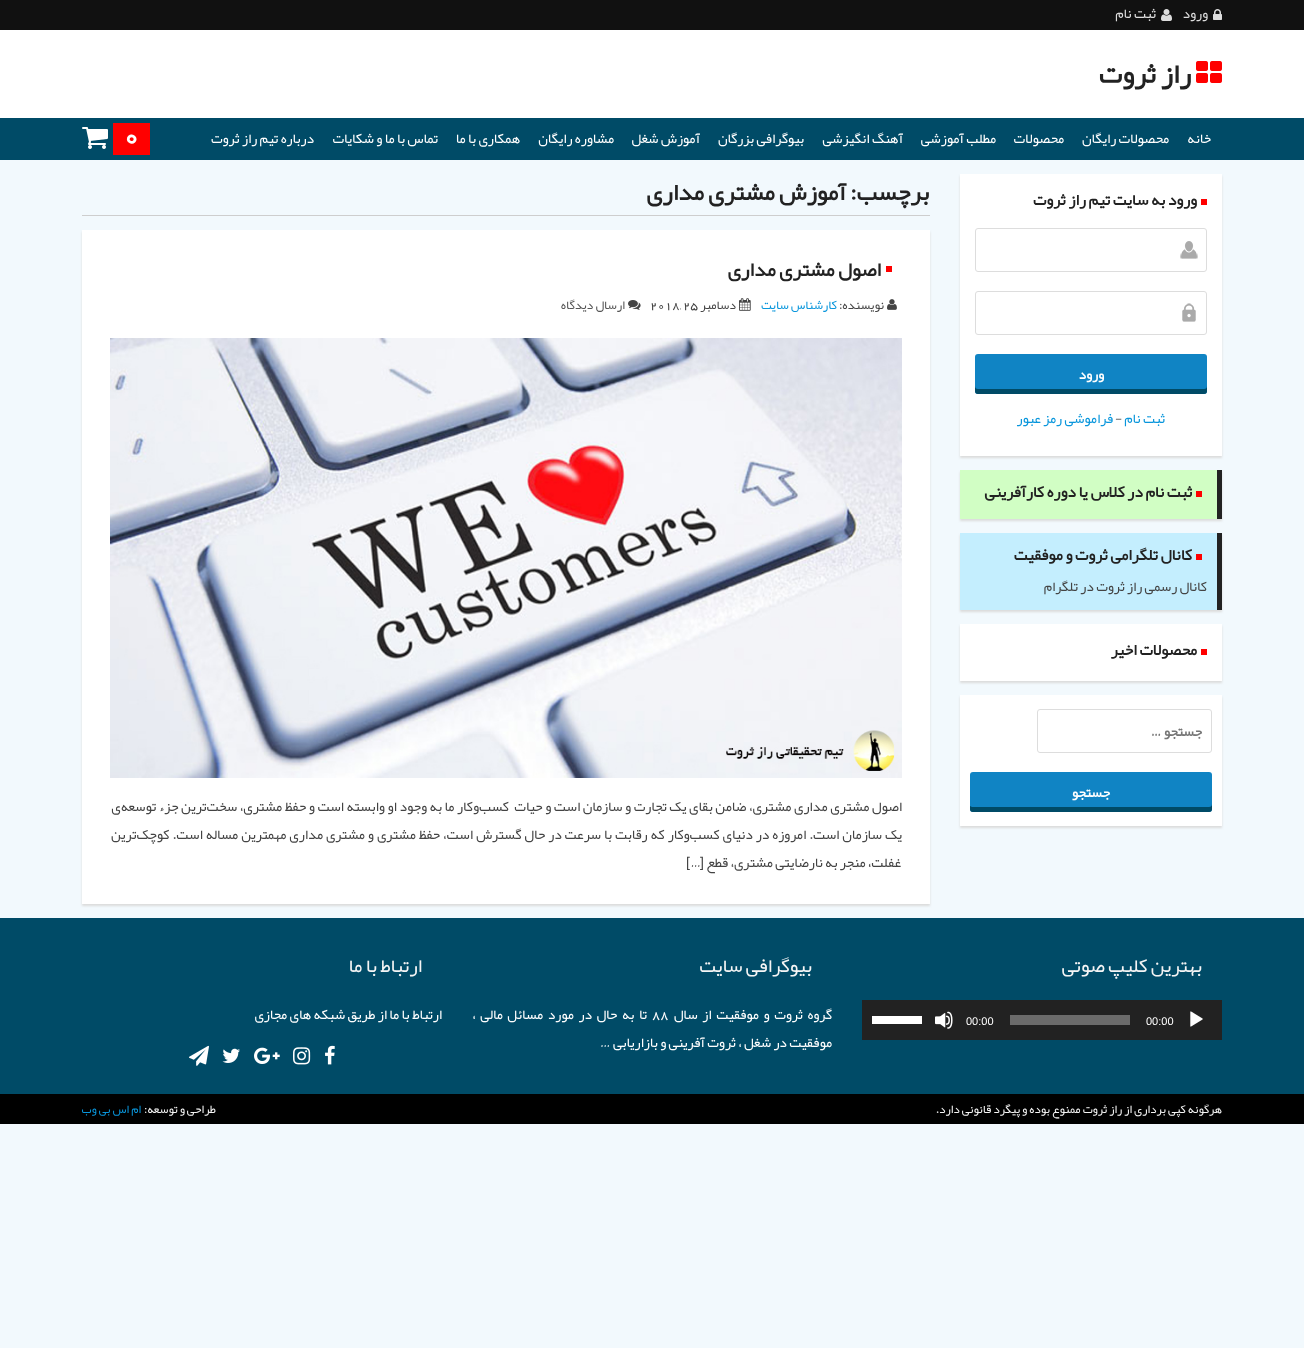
(async () => {
  const canvas = document.querySelector("canvas");
  canvas.width = 1304;
  canvas.height = 1348;
  const ctx = canvas.getContext("2d");
  ctx.miterLimit = 4;
  ctx.fontKerning = "normal";
  async function loadImage(src) {
    const img = new Image();
    img.src = src;
    await img.decode();
    return img;
  }
  let path;

  ctx.fillStyle = "#f2f9fd";
  ctx.fillRect(0, 0, 1304, 1348);
  ctx.fillStyle = "#111111";
  ctx.fillRect(0, 0, 1304, 30);
  ctx.drawImage(await loadImage("img/1.png"), 1213, 9, 9, 11);
  ctx.drawImage(await loadImage("img/2.png"), 1161, 9, 11, 12);
  ctx.fillStyle = "#ffffff";
  ctx.fillRect(0, 30, 1304, 88);
  ctx.drawImage(await loadImage("img/3.png"), 1196, 61, 26, 22);
  ctx.fillStyle = "#004b67";
  ctx.fillRect(0, 118, 1304, 42);
  ctx.fillStyle = "#ff0000";
  ctx.fillRect(113, 123, 37, 32);
  ctx.drawImage(await loadImage("img/4.png"), 82, 127, 26, 22);
  ctx.fillStyle = "#dbdbdb";
  ctx.filter = "blur(1px)";
  ctx.beginPath();
  ctx.rect(960, 176, 262, 282);
  ctx.fill();
  ctx.filter = "none";
  ctx.fillStyle = "#ffffff";
  ctx.fillRect(960, 174, 262, 282);
  ctx.fillStyle = "#ff0000";
  ctx.fillRect(1201, 199, 6, 6);
  ctx.drawImage(await loadImage("img/5.png"), 1180, 241, 18, 18);
  ctx.beginPath();
  ctx.roundRect(975.5, 228.5, 231, 43, 2.5);
  ctx.strokeStyle = "#dddddd";
  ctx.stroke();
  ctx.drawImage(await loadImage("img/6.png"), 1182, 303, 14, 19);
  ctx.beginPath();
  ctx.roundRect(975.5, 291.5, 231, 43, 2.5);
  ctx.stroke();
  ctx.fillStyle = "#1084c4";
  ctx.beginPath();
  ctx.roundRect(975, 354, 232, 40, 3);
  ctx.fill();
  ctx.fillStyle = "#004b67";
  path = new Path2D("M975 386V391C975 393 976 394 978 394H1204C1206 394 1207 393 1207 391V386C1207 388 1206 389 1204 389H978C976 389 975 388 975 386Z");
  ctx.fill(path);
  ctx.fillStyle = "#dbdbdb";
  ctx.filter = "blur(1px)";
  ctx.beginPath();
  ctx.rect(960, 472, 262, 49);
  ctx.fill();
  ctx.filter = "none";
  for (const [x, y, w, h, color] of [
    [960, 470, 257, 49, "#d1fec4"],
    [1217, 470, 5, 49, "#222222"],
    [1196, 491, 6, 6, "#ff0000"],
  ]) {
    ctx.fillStyle = color;
    ctx.fillRect(x, y, w, h);
  }
  ctx.fillStyle = "#dbdbdb";
  ctx.filter = "blur(1px)";
  ctx.beginPath();
  ctx.rect(960, 535, 262, 77);
  ctx.fill();
  ctx.filter = "none";
  for (const [x, y, w, h, color] of [
    [960, 533, 257, 77, "#c4eefe"],
    [1217, 533, 5, 77, "#222222"],
    [1196, 554, 6, 6, "#ff0000"],
  ]) {
    ctx.fillStyle = color;
    ctx.fillRect(x, y, w, h);
  }
  ctx.fillStyle = "#dbdbdb";
  ctx.filter = "blur(1px)";
  ctx.beginPath();
  ctx.rect(960, 626, 262, 57);
  ctx.fill();
  ctx.filter = "none";
  ctx.fillStyle = "#ffffff";
  ctx.fillRect(960, 624, 262, 57);
  ctx.fillStyle = "#ff0000";
  ctx.fillRect(1201, 649, 6, 6);
  ctx.fillStyle = "#dbdbdb";
  ctx.filter = "blur(1px)";
  ctx.beginPath();
  ctx.rect(960, 697, 262, 131);
  ctx.fill();
  ctx.filter = "none";
  ctx.fillStyle = "#ffffff";
  ctx.fillRect(960, 695, 262, 131);
  ctx.beginPath();
  ctx.roundRect(1037.5, 709.5, 174, 43, 2.5);
  ctx.stroke();
  ctx.fillStyle = "#1084c4";
  ctx.beginPath();
  ctx.roundRect(970, 772, 242, 40, 3);
  ctx.fill();
  ctx.fillStyle = "#004b67";
  path = new Path2D("M970 804V809C970 811 971 812 973 812H1209C1211 812 1212 811 1212 809V804C1212 806 1211 807 1209 807H972L970 806Z");
  ctx.fill(path);
  ctx.fillStyle = "#cecece";
  ctx.fillRect(82, 215, 848, 1);
  ctx.fillStyle = "#dbdbdb";
  ctx.filter = "blur(1px)";
  ctx.beginPath();
  ctx.rect(82, 232, 848, 674);
  ctx.fill();
  ctx.filter = "none";
  ctx.fillStyle = "#ffffff";
  ctx.fillRect(82, 230, 848, 674);
  ctx.fillStyle = "#ff0000";
  ctx.fillRect(886, 266, 6, 6);
  ctx.drawImage(await loadImage("img/7.png"), 887, 299, 10, 11);
  ctx.drawImage(await loadImage("img/8.png"), 739, 298, 12, 13);
  ctx.drawImage(await loadImage("img/9.png"), 628, 300, 13, 10);
  ctx.drawImage(await loadImage("img/10.png"), 110, 338, 792, 440);
  ctx.fillStyle = "#004b67";
  ctx.fillRect(0, 918, 1304, 176);
  ctx.fillStyle = "#222222";
  ctx.fillRect(862, 1000, 360, 40);
  ctx.drawImage(await loadImage("img/11.png"), 1190, 1011, 13, 16);
  ctx.fillStyle = "#6b6b6b";
  ctx.fillRect(1010, 1015, 120, 10);
  ctx.drawImage(await loadImage("img/12.png"), 935, 1011, 18, 18);
  ctx.fillStyle = "#ffffff";
  ctx.fillRect(872, 1016, 50, 8);
  ctx.drawImage(await loadImage("img/13.png"), 325, 1045, 10, 20);
  ctx.drawImage(await loadImage("img/14.png"), 293, 1047, 18, 18);
  ctx.drawImage(await loadImage("img/15.png"), 254, 1047, 26, 17);
  ctx.drawImage(await loadImage("img/16.png"), 222, 1048, 18, 15);
  ctx.drawImage(await loadImage("img/17.png"), 189, 1045, 20, 21);
  ctx.fillStyle = "#000000";
  ctx.fillRect(0, 1094, 1304, 30);
  ctx.direction = "rtl";
  ctx.font = "14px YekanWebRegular";
  ctx.fillStyle = "#dddddd";
  ctx.fillText("ورود", 1208, 18);
  ctx.fillText("ثبت نام", 1156, 18);
  ctx.font = "bold 28px YekanWebRegular";
  ctx.fillStyle = "#222222";
  ctx.fillText("راز ثروت", 1191, 83);
  ctx.font = "14px YekanWebRegular";
  ctx.fillStyle = "#ffffff";
  for (const [text, x, y] of [
    ["خانه", 1211, 143],
    ["محصولات رایگان", 1169, 143],
    ["محصولات", 1064, 143],
    ["مطلب آموزشی", 996, 143],
    ["آهنگ انگیزشی", 903, 143],
    ["بیوگرافی بزرگان", 804, 143],
    ["آموزش شغل", 700, 143],
    ["مشاوره رایگان", 614, 143],
    ["همکاری با ما", 520, 143],
    ["تماس با ما و شکایات", 438, 143],
    ["درباره تیم راز ثروت", 314, 143],
  ]) {
    ctx.fillText(text, x, y);
  }
  ctx.direction = "ltr";
  ctx.font = "bold 28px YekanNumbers";
  ctx.fillText("0", 123, 144);
  ctx.direction = "rtl";
  ctx.font = "bold 16px YekanWebRegular";
  ctx.fillStyle = "#222222";
  ctx.fillText("ورود به سایت تیم راز ثروت", 1197, 205);
  ctx.font = "bold 14px YekanWebRegular";
  ctx.fillStyle = "#ffffff";
  ctx.fillText("ورود", 1104, 379);
  ctx.font = "14px YekanWebRegular";
  ctx.fillStyle = "#0996dc";
  ctx.fillText("ثبت نام", 1165, 423);
  ctx.direction = "ltr";
  ctx.fillStyle = "#444444";
  ctx.fillText("-", 1115, 423);
  ctx.direction = "rtl";
  ctx.fillStyle = "#0996dc";
  ctx.fillText("فراموشی رمز عبور", 1113, 423);
  ctx.font = "bold 16px YekanWebRegular";
  ctx.fillStyle = "#222222";
  ctx.fillText("ثبت نام در کلاس یا دوره کارآفرینی", 1192, 497);
  ctx.fillText("کانال تلگرامی ثروت و موفقیت", 1192, 560);
  ctx.font = "14px YekanWebRegular";
  ctx.fillStyle = "#444444";
  ctx.fillText("کانال رسمی راز ثروت در تلگرام", 1207, 591);
  ctx.font = "bold 16px YekanWebRegular";
  ctx.fillStyle = "#222222";
  ctx.fillText("محصولات اخیر", 1197, 655);
  ctx.font = "bold 14px YekanWebRegular";
  ctx.fillStyle = "#757575";
  ctx.fillText("جستجو …", 1202, 736);
  ctx.fillStyle = "#ffffff";
  ctx.fillText("جستجو", 1110, 797);
  ctx.font = "bold 24px YekanWebRegular";
  ctx.fillStyle = "#222222";
  ctx.fillText("برچسب:", 929, 200);
  ctx.fillText("آموزش مشتری مداری", 846, 200);
  ctx.font = "bold 20px YekanWebRegular";
  ctx.fillText("اصول مشتری مداری", 881, 276);
  ctx.font = "12.5px YekanWebRegular";
  ctx.fillStyle = "#444444";
  ctx.fillText("نویسنده:", 884, 309);
  ctx.fillStyle = "#0996dc";
  ctx.fillText("کارشناس سایت", 837, 309);
  ctx.fillStyle = "#444444";
  ctx.fillText("دسامبر", 736, 309);
  ctx.direction = "ltr";
  ctx.font = "12.5px YekanNumbers";
  ctx.fillText("25", 683, 309);
  ctx.font = "12.5px YekanWebRegular";
  ctx.fillText(",", 680, 309);
  ctx.font = "12.5px YekanNumbers";
  ctx.fillText("2018", 650, 309);
  ctx.direction = "rtl";
  ctx.font = "12.5px YekanWebRegular";
  ctx.fillStyle = "#555555";
  ctx.fillText("ارسال دیدگاه", 625, 309);
  ctx.wordSpacing = "0.25px";
  ctx.font = "14px YekanWebRegular";
  ctx.fillStyle = "#444444";
  ctx.fillText("اصول مشتری مداری مشتری، ضامن بقای یک تجارت و سازمان است و حیات", 902, 811);
  ctx.fillText("کسب‌وکار ما به وجود او وابسته است و حفظ مشتری‌، سخت‌ترین جزء توسعه‌ی", 509, 811);
  ctx.wordSpacing = "0.6px";
  ctx.fillText("یک سازمان است. امروزه در دنیای کسب‌‌وکار که رقابت با سرعت در حال گسترش است، حفظ مشتری و مشتری مداری مهمترین مساله است. کوچک‌ترین", 902, 839);
  ctx.wordSpacing = "0px";
  ctx.fillText("غفلت، منجر به نارضایتی مشتری، قطع", 901, 867);
  ctx.font = "14px Liberation Sans";
  ctx.fillText("[", 704, 867);
  ctx.font = "14px YekanWebRegular";
  ctx.fillText("…", 701, 867);
  ctx.font = "14px Liberation Sans";
  ctx.fillText("]", 690, 867);
  ctx.font = "19.5px YekanWebRegular";
  ctx.fillStyle = "#f5f5f5";
  ctx.fillText("بهترین کلیپ صوتی", 1202, 972);
  ctx.direction = "ltr";
  ctx.font = "11px Liberation Sans";
  ctx.fillStyle = "#ffffff";
  ctx.fillText("00:00", 1146, 1025);
  ctx.fillText("00:00", 966, 1025);
  ctx.direction = "rtl";
  ctx.font = "19.5px YekanWebRegular";
  ctx.fillStyle = "#f5f5f5";
  ctx.fillText("بیوگرافی سایت", 812, 972);
  ctx.wordSpacing = "2.25px";
  ctx.font = "14px YekanWebRegular";
  ctx.fillStyle = "#ffffff";
  ctx.fillText("گروه ثروت و موفقیت از سال", 832, 1019);
  ctx.wordSpacing = "0px";
  ctx.direction = "ltr";
  ctx.font = "14px YekanNumbers";
  ctx.fillText("88", 652, 1019);
  ctx.wordSpacing = "2.25px";
  ctx.direction = "rtl";
  ctx.font = "14px YekanWebRegular";
  ctx.fillText("تا به حال در مورد مسائل مالی ،", 647, 1019);
  ctx.wordSpacing = "0px";
  ctx.fillText("موفقیت در شغل ، ثروت آفرینی و بازاریابی …", 832, 1047);
  ctx.font = "19.5px YekanWebRegular";
  ctx.fillStyle = "#f5f5f5";
  ctx.fillText("ارتباط با ما", 422, 972);
  ctx.font = "14px YekanWebRegular";
  ctx.fillStyle = "#ffffff";
  ctx.fillText("ارتباط با ما از طریق شبکه های مجازی", 442, 1019);
  ctx.font = "12px YekanWebRegular";
  ctx.fillStyle = "#f5f5f5";
  ctx.fillText("هرگونه کپی برداری از راز ثروت ممنوع بوده و پیگرد قانونی دارد.", 1222, 1113);
  ctx.fillText("طراحی و توسعه:", 216, 1113);
  ctx.fillStyle = "#0996dc";
  ctx.fillText("ام اس بی وب", 141, 1113);
})();
